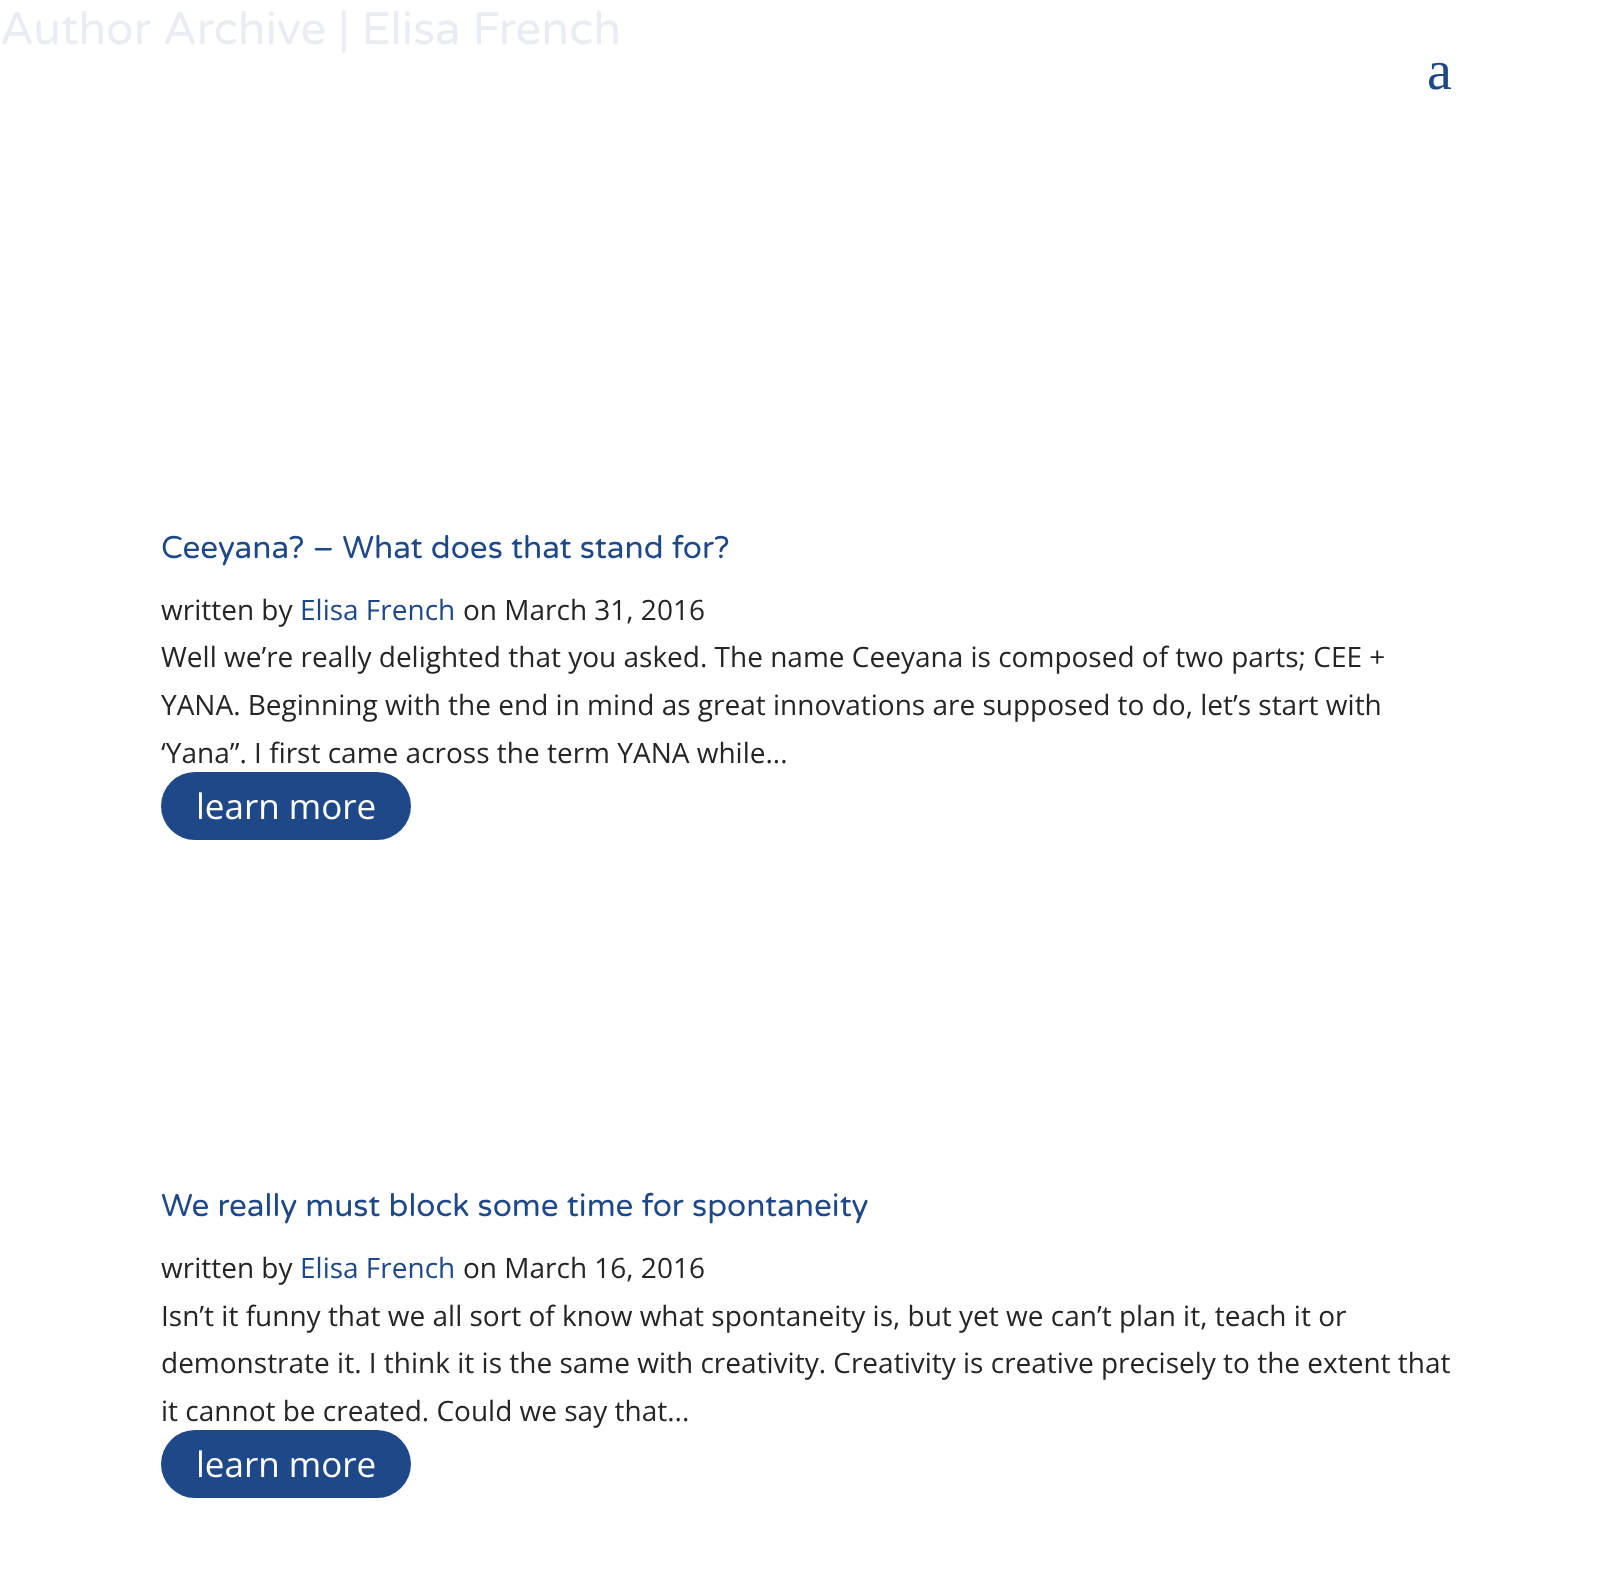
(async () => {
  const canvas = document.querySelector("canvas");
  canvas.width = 1612;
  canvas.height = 1581;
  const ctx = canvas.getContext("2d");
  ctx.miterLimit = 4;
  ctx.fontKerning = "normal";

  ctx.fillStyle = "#ffffff";
  ctx.fillRect(0, 0, 1612, 1581);
  ctx.fillStyle = "#1e4888";
  ctx.beginPath();
  ctx.roundRect(161, 772, 250, 68, 34);
  ctx.fill();
  ctx.beginPath();
  ctx.roundRect(161, 1430, 250, 68, 34);
  ctx.fill();
  ctx.font = "45.5px Varela Round";
  ctx.fillStyle = "#e9edf3";
  ctx.fillText("Author Archive | Elisa French", 0, 44);
  ctx.font = "31.5px Varela Round";
  ctx.fillStyle = "#1e4888";
  ctx.fillText("Ceeyana? – What does that stand for?", 161, 558);
  ctx.font = "28px Open Sans";
  ctx.fillStyle = "#252525";
  ctx.fillText("written by", 161, 620);
  ctx.fillStyle = "#1e4888";
  ctx.fillText("Elisa French", 300, 620);
  ctx.fillStyle = "#252525";
  for (const [text, x, y] of [
    ["on March 31, 2016", 463, 620],
    ["Well we’re really delighted that you asked. The name Ceeyana is composed of two parts; CEE +", 161, 667],
    ["YANA. Beginning with the end in mind as great innovations are supposed to do, let’s start with", 161, 715],
    ["‘Yana”. I first came across the term YANA while...", 161, 763],
  ]) {
    ctx.fillText(text, x, y);
  }
  ctx.font = "35px Open Sans";
  ctx.fillStyle = "#ffffff";
  ctx.fillText("learn more", 196, 819);
  ctx.font = "31.5px Varela Round";
  ctx.fillStyle = "#1e4888";
  ctx.fillText("We really must block some time for spontaneity", 161, 1216);
  ctx.font = "28px Open Sans";
  ctx.fillStyle = "#252525";
  ctx.fillText("written by", 161, 1278);
  ctx.fillStyle = "#1e4888";
  ctx.fillText("Elisa French", 300, 1278);
  ctx.fillStyle = "#252525";
  for (const [text, x, y] of [
    ["on March 16, 2016", 463, 1278],
    ["Isn’t it funny that we all sort of know what spontaneity is, but yet we can’t plan it, teach it or", 161, 1326],
    ["demonstrate it. I think it is the same with creativity. Creativity is creative precisely to the extent that", 161, 1373],
    ["it cannot be created. Could we say that...", 161, 1421],
  ]) {
    ctx.fillText(text, x, y);
  }
  ctx.font = "35px Open Sans";
  ctx.fillStyle = "#ffffff";
  ctx.fillText("learn more", 196, 1477);
  ctx.font = "56px Liberation Serif";
  ctx.fillStyle = "#1e4888";
  ctx.fillText("a", 1427, 89);
})();
